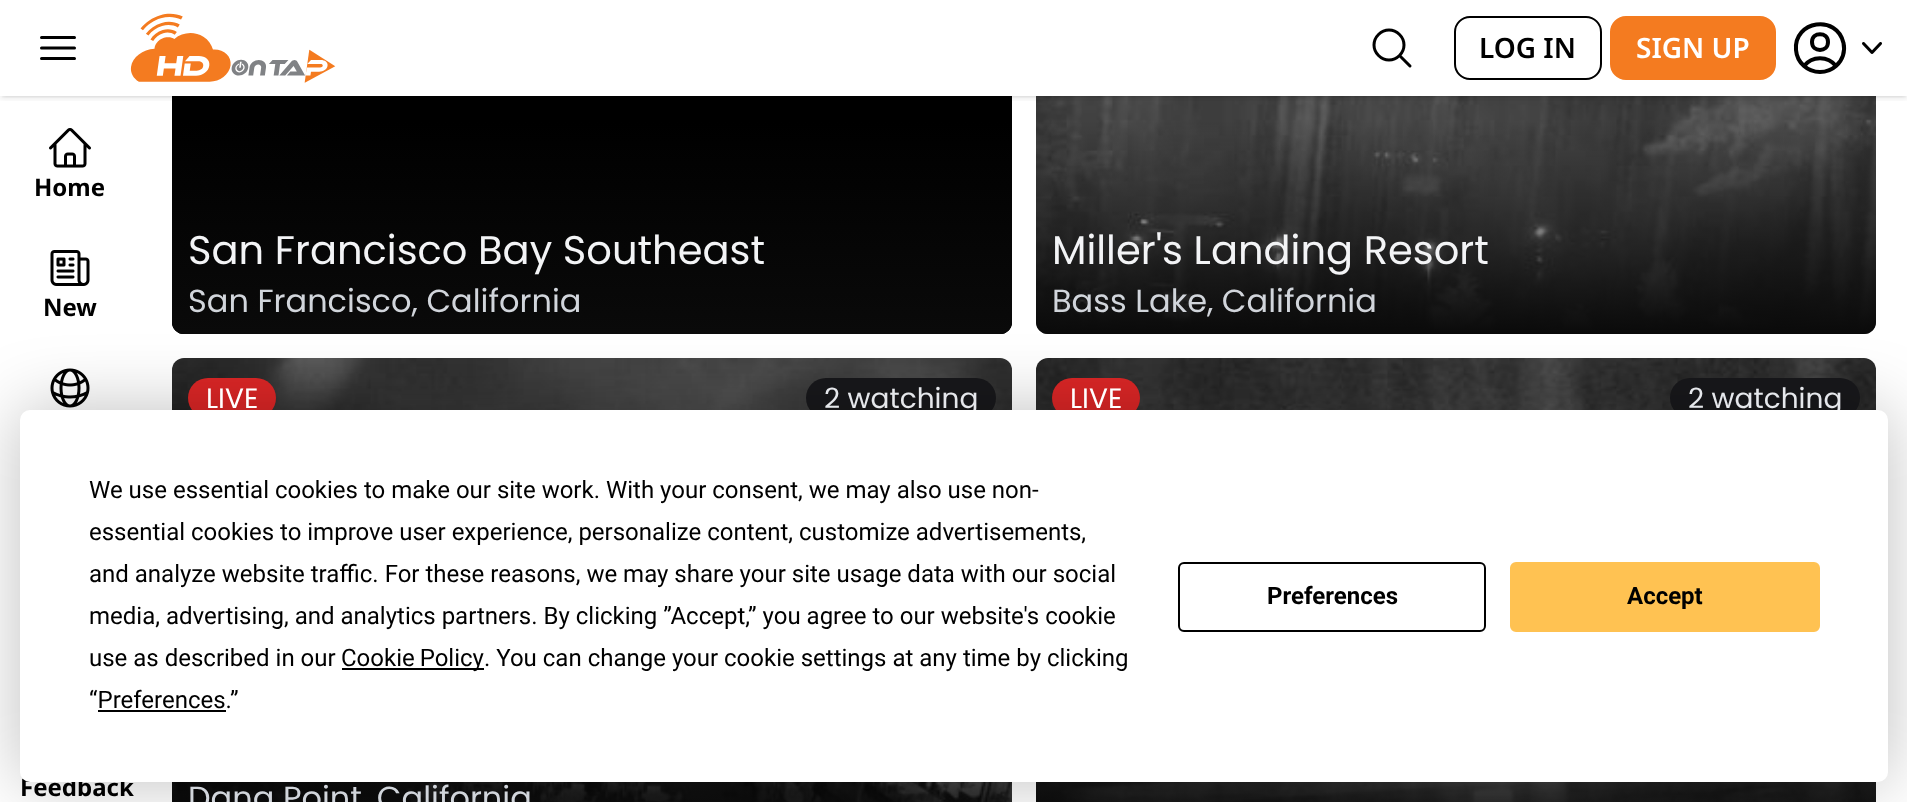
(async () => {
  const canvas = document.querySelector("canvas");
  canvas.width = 1907;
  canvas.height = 802;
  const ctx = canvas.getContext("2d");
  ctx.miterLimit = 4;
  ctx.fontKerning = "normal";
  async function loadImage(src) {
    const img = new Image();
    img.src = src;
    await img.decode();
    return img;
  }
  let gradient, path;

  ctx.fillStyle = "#ffffff";
  ctx.fillRect(0, 0, 1907, 802);
  ctx.fillStyle = "#000000";
  ctx.beginPath();
  ctx.roundRect(172, -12, 840, 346, 12);
  ctx.fill();
  ctx.drawImage(await loadImage("img/6.png"), 172, 322, 840, 12);
  gradient = ctx.createLinearGradient(592, 334, 592, -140);
  gradient.addColorStop(0, "#0a0a0a");
  gradient.addColorStop(0.45, "rgba(10, 10, 10, 0)");
  ctx.fillStyle = gradient;
  ctx.beginPath();
  ctx.roundRect(172, -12, 840, 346, 12);
  ctx.fill();
  ctx.fillStyle = "#ffffff";
  ctx.fillRect(172, 0, 840, 96);
  ctx.drawImage(await loadImage("img/7.png"), 1036, 96, 840, 238);
  gradient = ctx.createLinearGradient(1456, 334, 1456, -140);
  gradient.addColorStop(0, "#0a0a0a");
  gradient.addColorStop(0.45, "rgba(10, 10, 10, 0)");
  ctx.fillStyle = gradient;
  ctx.beginPath();
  ctx.roundRect(1036, -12, 840, 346, 12);
  ctx.fill();
  ctx.save();
  ctx.beginPath();
  ctx.rect(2, 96, 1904, 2);
  ctx.clip();
  ctx.fillStyle = "rgba(0, 0, 0, 0.1)";
  ctx.filter = "blur(2px)";
  ctx.beginPath();
  ctx.rect(2, 4, 1904, 92);
  ctx.fill();
  ctx.filter = "none";
  ctx.restore();
  ctx.save();
  ctx.beginPath();
  ctx.rect(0, 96, 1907, 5);
  ctx.clip();
  ctx.fillStyle = "rgba(0, 0, 0, 0.1)";
  ctx.filter = "blur(3px)";
  ctx.beginPath();
  ctx.rect(0, 2, 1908, 96);
  ctx.fill();
  ctx.filter = "none";
  ctx.restore();
  path = new Path2D("M41.5 37.5H74.5M41.5 48H74.5M41.5 58.5H74.5");
  ctx.strokeStyle = "#000000";
  ctx.lineWidth = 3;
  ctx.lineCap = "round";
  ctx.lineJoin = "round";
  ctx.stroke(path);
  ctx.drawImage(await loadImage("img/1.png"), 130, 13, 206, 70);
  path = new Path2D("M1410 66L1399.5 55.5M1399.5 55.5C1405.5 49.5 1405.5 40.5 1399.5 34.5C1393.5 28.5 1384.5 28.5 1378.5 34.5C1372.5 40.5 1372.5 49.5 1378.5 55.5C1384.5 61.5 1393.5 61.5 1399.5 55.5Z");
  ctx.stroke(path);
  ctx.beginPath();
  ctx.roundRect(1455, 17, 146, 62, 15);
  ctx.lineWidth = 2;
  ctx.lineJoin = "miter";
  ctx.stroke();
  ctx.fillStyle = "#f47b20";
  ctx.beginPath();
  ctx.roundRect(1611, 17, 164, 62, 15);
  ctx.fill();
  ctx.strokeStyle = "#f47b20";
  ctx.stroke();
  path = new Path2D("M1836 66C1828 55.5 1812 55.5 1804 66M1836 66C1842.5 60.5 1845.5 51.5 1843.5 43C1837 14 1793.5 20.5 1796 50C1796.5 56 1799.5 62 1804 66M1836 66C1827 74 1813 74 1804 66M1828 42C1828 52.5 1812 52.5 1812 42C1812 31.5 1828 31.5 1828 42Z");
  ctx.strokeStyle = "#000000";
  ctx.lineWidth = 4;
  ctx.lineJoin = "round";
  ctx.stroke(path);
  ctx.drawImage(await loadImage("img/2.png"), 1862, 42, 20, 12);
  ctx.drawImage(await loadImage("img/3.png"), 49, 128, 42, 40);
  ctx.drawImage(await loadImage("img/4.png"), 50, 250, 40, 36);
  ctx.drawImage(await loadImage("img/5.png"), 50, 368, 40, 40);
  ctx.drawImage(await loadImage("img/8.png"), 172, 358, 840, 444);
  ctx.fillStyle = "#18181b";
  ctx.beginPath();
  ctx.roundRect(806, 378, 190, 40, 20);
  ctx.fill();
  ctx.fillStyle = "#dc2626";
  ctx.beginPath();
  ctx.roundRect(188, 378, 88, 40, 20);
  ctx.fill();
  gradient = ctx.createLinearGradient(592, 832, 592, 358);
  gradient.addColorStop(0, "#0a0a0a");
  gradient.addColorStop(0.45, "rgba(10, 10, 10, 0)");
  ctx.fillStyle = gradient;
  ctx.fillRect(172, 782, 840, 20);
  ctx.drawImage(await loadImage("img/9.png"), 1036, 358, 840, 444);
  ctx.fillStyle = "#dc2626";
  ctx.beginPath();
  ctx.roundRect(1052, 378, 88, 40, 20);
  ctx.fill();
  ctx.fillStyle = "#18181b";
  ctx.beginPath();
  ctx.roundRect(1670, 378, 190, 40, 20);
  ctx.fill();
  gradient = ctx.createLinearGradient(1456, 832, 1456, 358);
  gradient.addColorStop(0, "#0a0a0a");
  gradient.addColorStop(0.45, "rgba(10, 10, 10, 0)");
  ctx.fillStyle = gradient;
  ctx.fillRect(1036, 782, 840, 20);
  ctx.fillStyle = "rgba(0, 0, 0, 0.25)";
  ctx.filter = "blur(35px)";
  ctx.beginPath();
  ctx.roundRect(20, 410, 1868, 372, 10);
  ctx.fill();
  ctx.filter = "none";
  ctx.font = "600 28px Noto Sans";
  ctx.fillStyle = "#000000";
  ctx.fillText("LOG IN", 1479, 58);
  ctx.fillStyle = "#ffffff";
  ctx.fillText("SIGN UP", 1636, 58);
  ctx.font = "bold 24px Noto Sans";
  ctx.fillStyle = "#000000";
  for (const [text, x, y] of [
    ["Home", 34, 196],
    ["New", 43, 316],
    ["Feedback", 20, 796],
  ]) {
    ctx.fillText(text, x, y);
  }
  ctx.font = "40px Poppins";
  ctx.fillStyle = "#f3f4f6";
  ctx.fillText("San Francisco Bay Southeast", 188, 264);
  ctx.font = "32px Poppins";
  ctx.fillStyle = "#d1d5db";
  ctx.fillText("San Francisco, California", 188, 312);
  ctx.font = "40px Poppins";
  ctx.fillStyle = "#f3f4f6";
  ctx.fillText("Miller's Landing Resort", 1052, 264);
  ctx.font = "32px Poppins";
  ctx.fillStyle = "#d1d5db";
  ctx.fillText("Bass Lake, California", 1052, 312);
  ctx.font = "28px Poppins";
  ctx.fillStyle = "#e5e7eb";
  ctx.fillText("2 watching", 824, 408);
  ctx.font = "32px Poppins";
  ctx.fillStyle = "#d1d5db";
  ctx.fillText("Dana Point, California", 188, 809);
  ctx.font = "28px Poppins";
  ctx.fillStyle = "#ffffff";
  ctx.fillText("LIVE", 206, 408);
  ctx.fillText("LIVE", 1070, 408);
  ctx.fillStyle = "#e5e7eb";
  ctx.fillText("2 watching", 1688, 408);
  ctx.fillStyle = "#ffffff";
  ctx.beginPath();
  ctx.roundRect(20, 410, 1868, 372, 10);
  ctx.fill();
  ctx.font = "24px Roboto";
  ctx.fillStyle = "#000000";
  for (const [text, x, y] of [
    ["We use essential cookies to make our site work. With your consent, we may also use non-", 89, 498],
    ["essential cookies to improve user experience, personalize content, customize advertisements,", 89, 540],
    ["and analyze website traffic. For these reasons, we may share your site usage data with our social", 89, 582],
    ["media, advertising, and analytics partners. By clicking ”Accept,” you agree to our website's cookie", 89, 624],
    ["use as described in our", 89, 666],
  ]) {
    ctx.fillText(text, x, y);
  }
  ctx.fillRect(342, 668, 142, 2);
  ctx.wordSpacing = "-1px";
  ctx.fillText("Cookie Policy", 341, 666);
  ctx.wordSpacing = "0px";
  ctx.fillText(". You can change your cookie settings at any time by clicking", 484, 666);
  ctx.fillText("“Preferences.”", 89, 708);
  ctx.fillRect(98, 710, 128, 2);
  ctx.beginPath();
  ctx.roundRect(1179, 563, 306, 68, 5);
  ctx.lineWidth = 2;
  ctx.lineJoin = "miter";
  ctx.stroke();
  ctx.font = "bold 24px Roboto";
  ctx.fillText("Preferences", 1267, 604);
  ctx.fillStyle = "#ffc252";
  ctx.beginPath();
  ctx.roundRect(1511, 563, 308, 68, 5);
  ctx.fill();
  ctx.strokeStyle = "#ffc252";
  ctx.stroke();
  ctx.fillStyle = "#000000";
  ctx.fillText("Accept", 1627, 604);
})();
